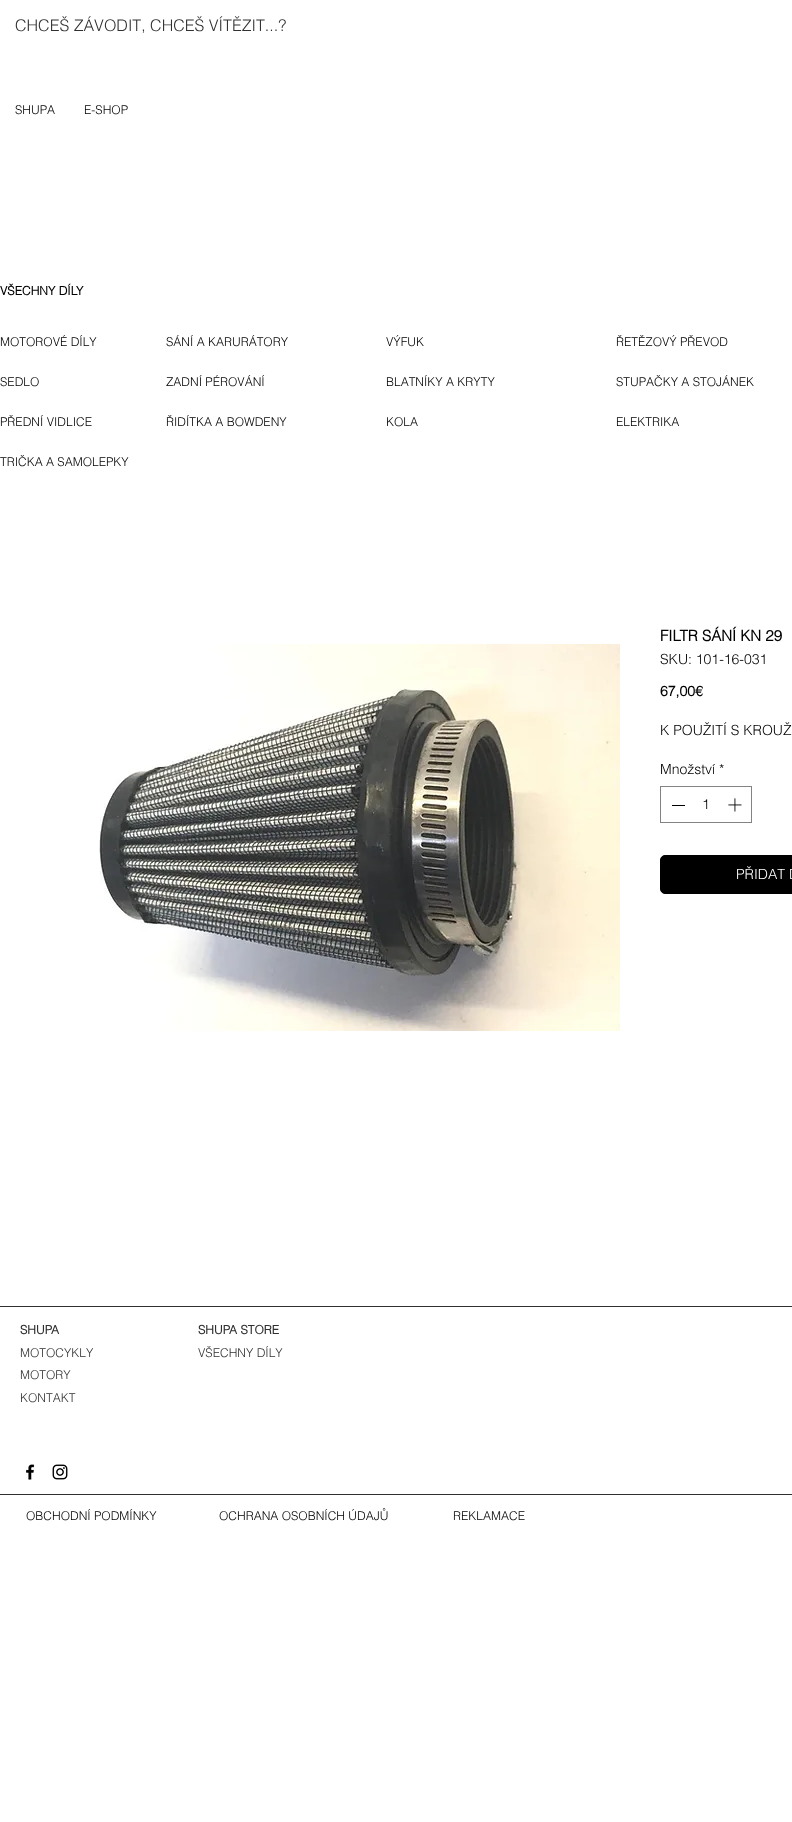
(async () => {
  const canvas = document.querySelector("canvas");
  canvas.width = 792;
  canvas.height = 1822;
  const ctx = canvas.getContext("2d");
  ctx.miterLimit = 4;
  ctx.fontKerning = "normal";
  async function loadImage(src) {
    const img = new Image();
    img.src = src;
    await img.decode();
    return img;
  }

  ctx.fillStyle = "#ffffff";
  ctx.fillRect(0, 0, 792, 1822);
  ctx.drawImage(await loadImage("img/1.png"), 99, 644, 521, 387);
  ctx.strokeStyle = "#838383";
  ctx.strokeRect(660.5, 786.5, 91, 36);
  ctx.fillStyle = "#000000";
  ctx.fillRect(672, 805, 13, 1);
  ctx.drawImage(await loadImage("img/2.png"), 728, 798, 14, 14);
  ctx.beginPath();
  ctx.roundRect(660.5, 855.5, 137, 38, 4.5);
  ctx.fill();
  ctx.strokeStyle = "#000000";
  ctx.stroke();
  ctx.fillStyle = "#303030";
  ctx.fillRect(0, 1306, 792, 1);
  ctx.drawImage(await loadImage("img/3.png"), 26, 1464, 9, 16);
  ctx.drawImage(await loadImage("img/4.png"), 52, 1464, 16, 16);
  ctx.fillRect(0, 1494, 792, 1);
  ctx.font = "300 16px helvetica";
  ctx.fillText("CHCEŠ ZÁVODIT, CHCEŠ VÍTĚZIT...?", 15, 31);
  ctx.font = "300 12px helvetica";
  ctx.fillStyle = "#000000";
  ctx.fillText("SHUPA", 15, 114);
  ctx.fillText("E-SHOP", 84, 114);
  ctx.font = "bold 12px helvetica";
  ctx.fillText("VŠECHNY DÍLY", 0, 295);
  ctx.font = "300 12px helvetica";
  for (const [text, x, y] of [
    ["MOTOROVÉ DÍLY", 0, 346],
    ["SÁNÍ A KARURÁTORY", 166, 346],
    ["VÝFUK", 386, 346],
    ["ŘETĚZOVÝ PŘEVOD", 616, 346],
    ["SEDLO", 0, 386],
    ["ZADNÍ PÉROVÁNÍ", 166, 386],
    ["BLATNÍKY A KRYTY", 386, 386],
    ["STUPAČKY A STOJÁNEK", 616, 386],
    ["PŘEDNÍ VIDLICE", 0, 426],
    ["ŘIDÍTKA A BOWDENY", 166, 426],
    ["KOLA", 386, 426],
    ["ELEKTRIKA", 616, 426],
    ["TRIČKA A SAMOLEPKY", 0, 466],
  ]) {
    ctx.fillText(text, x, y);
  }
  ctx.font = "bold 15px helvetica";
  ctx.fillText("FILTR SÁNÍ KN 29", 660, 641);
  ctx.font = "300 14px helvetica";
  ctx.fillText("SKU: 101-16-031", 660, 664);
  ctx.font = "bold 14px helvetica";
  ctx.fillText("67,00€", 660, 696);
  ctx.font = "300 14px helvetica";
  for (const [text, x, y] of [
    ["K POUŽITÍ S KROUŽ", 660, 735],
    ["Množství *", 660, 774],
    ["1", 702, 809],
  ]) {
    ctx.fillText(text, x, y);
  }
  ctx.fillStyle = "#ffffff";
  ctx.fillText("PŘIDAT D", 736, 879);
  ctx.font = "bold 12px helvetica";
  ctx.fillStyle = "#303030";
  ctx.fillText("SHUPA", 20, 1334);
  ctx.font = "300 12px helvetica";
  for (const [text, x, y] of [
    ["MOTOCYKLY", 20, 1357],
    ["MOTORY", 20, 1379],
    ["KONTAKT", 20, 1402],
  ]) {
    ctx.fillText(text, x, y);
  }
  ctx.font = "bold 12px helvetica";
  ctx.fillText("SHUPA STORE", 198, 1334);
  ctx.font = "300 12px helvetica";
  ctx.fillText("VŠECHNY DÍLY", 198, 1357);
  ctx.fillStyle = "#000000";
  for (const [text, x, y] of [
    ["OBCHODNÍ PODMÍNKY", 26, 1520],
    ["OCHRANA OSOBNÍCH ÚDAJŮ", 219, 1520],
    ["REKLAMACE", 453, 1520],
  ]) {
    ctx.fillText(text, x, y);
  }
})();
